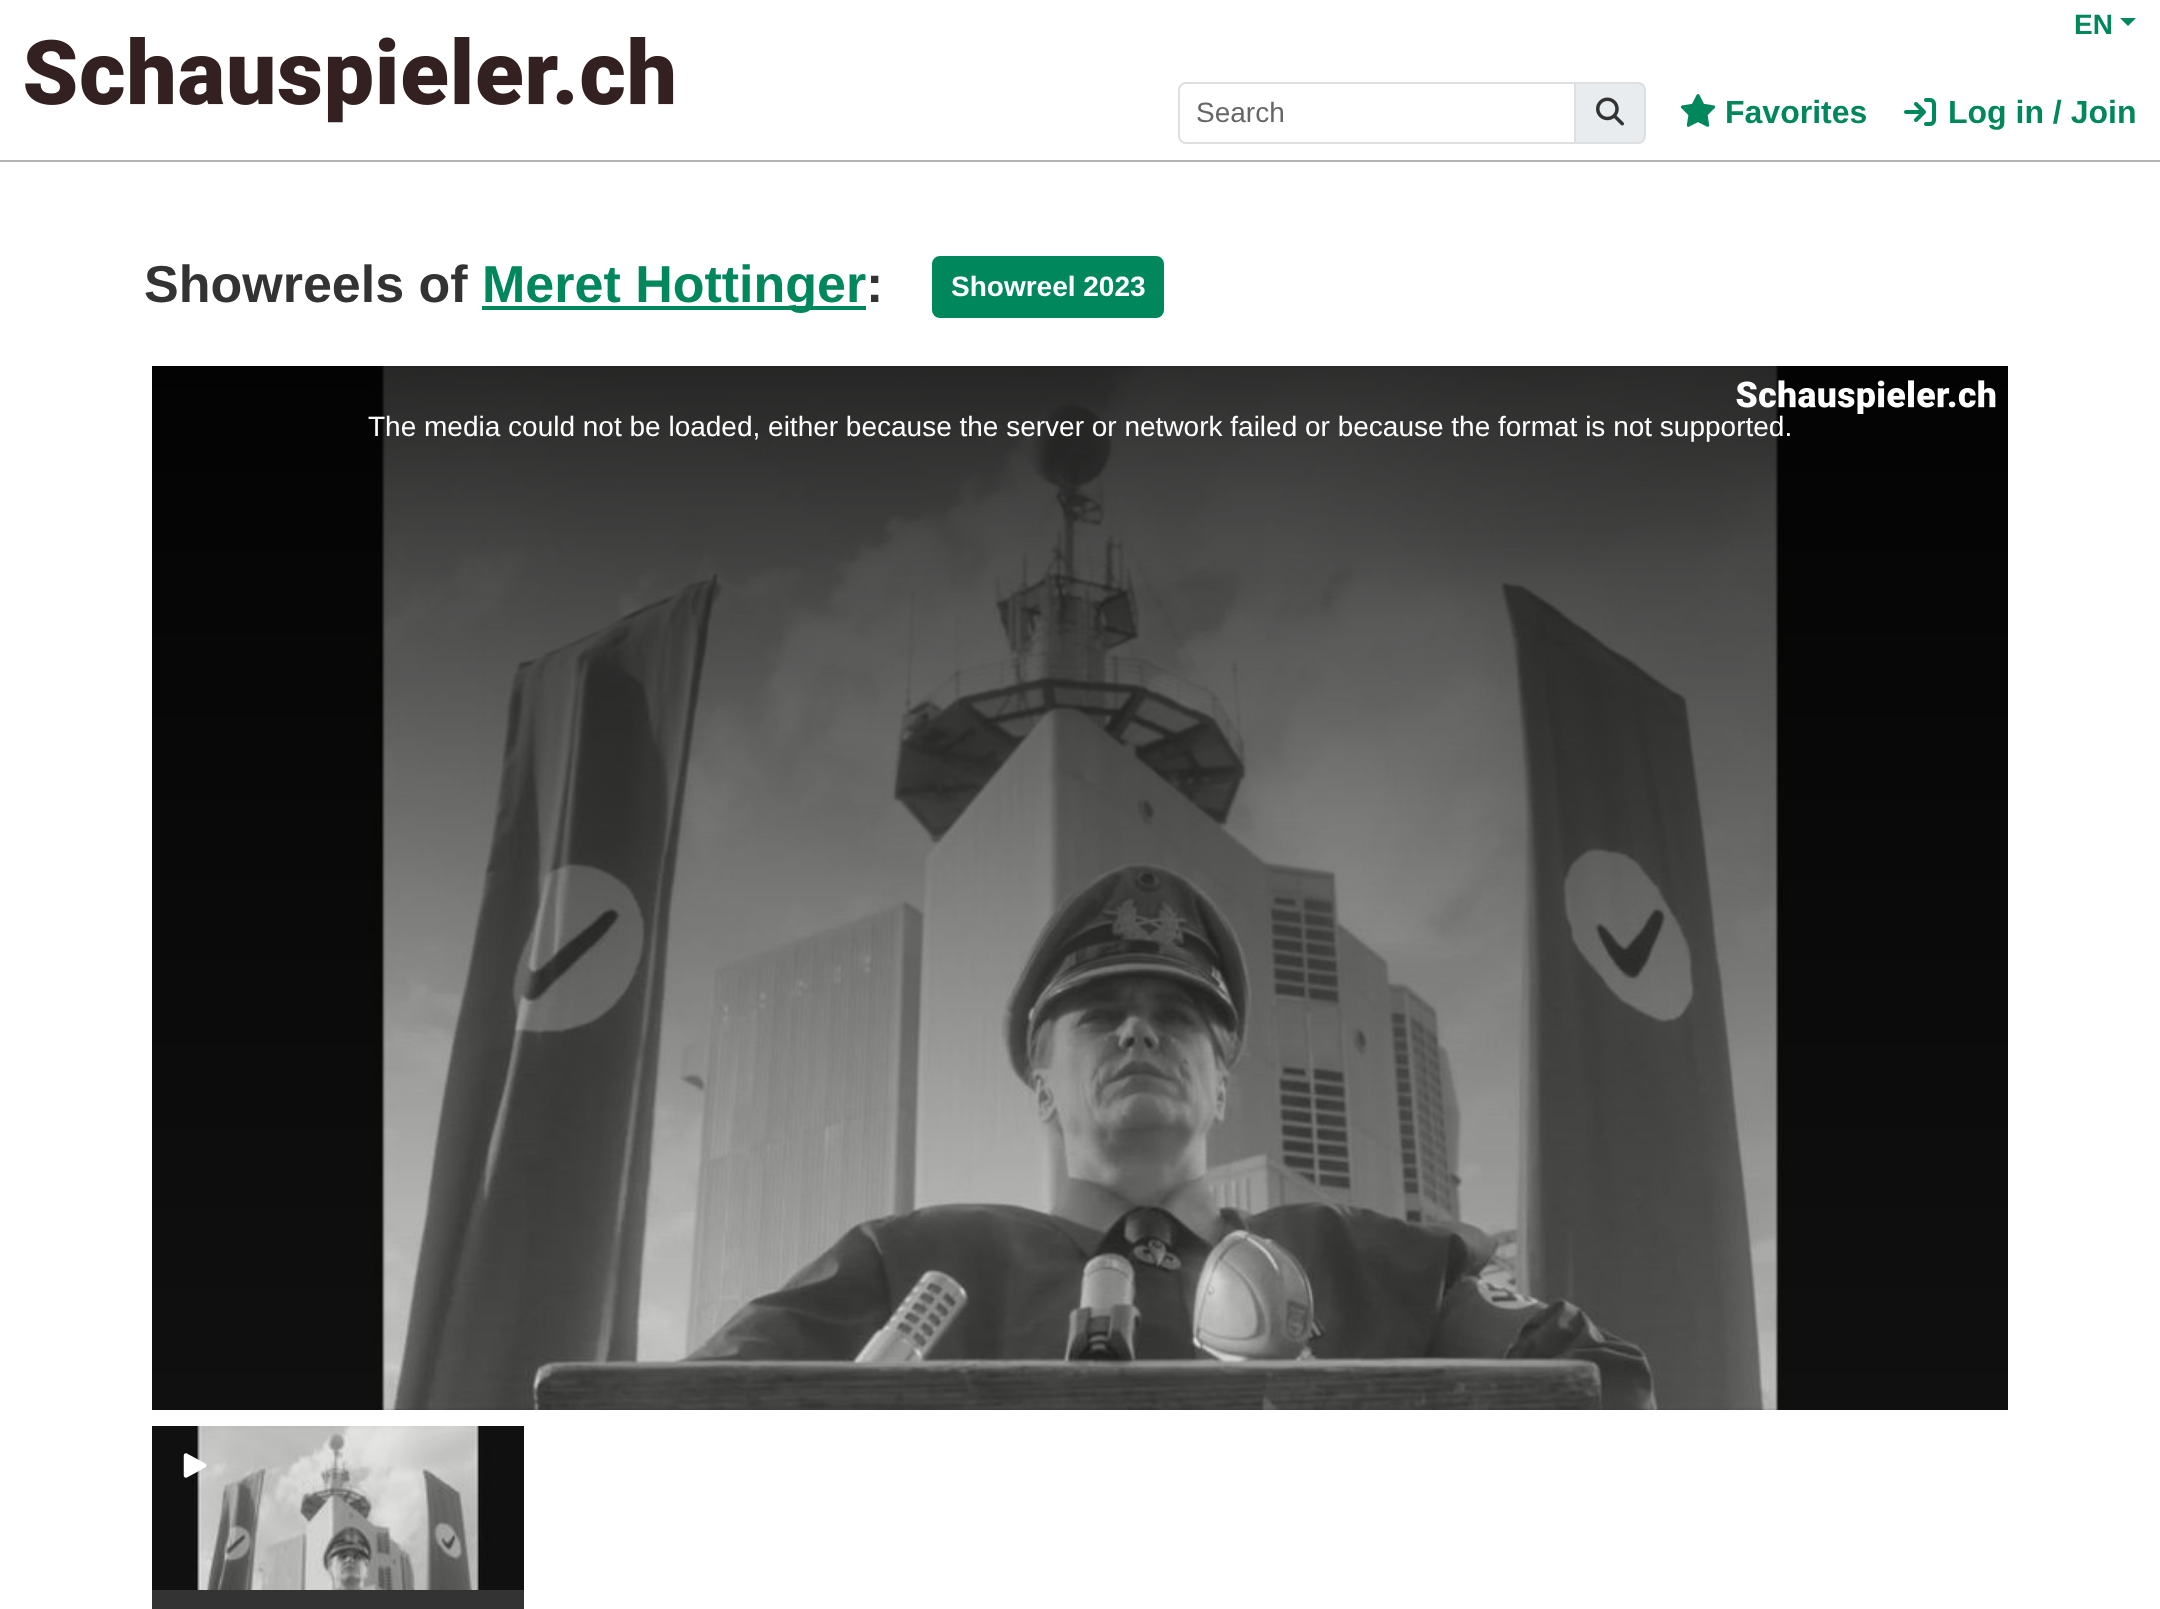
(async () => {
  const canvas = document.querySelector("canvas");
  canvas.width = 2160;
  canvas.height = 1609;
  const ctx = canvas.getContext("2d");
  ctx.miterLimit = 4;
  ctx.fontKerning = "normal";
  async function loadImage(src) {
    const img = new Image();
    img.src = src;
    await img.decode();
    return img;
  }
  let path;

  ctx.fillStyle = "#ffffff";
  ctx.fillRect(0, 0, 2160, 1609);
  ctx.fillStyle = "#b3b3b3";
  ctx.fillRect(0, 160, 2160, 2);
  ctx.drawImage(await loadImage("img/1.png"), 25, 37, 649, 86);
  ctx.fillStyle = "#00875c";
  path = new Path2D("M2120 18H2136L2128 26Z");
  ctx.fill(path);
  ctx.beginPath();
  ctx.roundRect(1179, 83, 396, 60, [7, 0, 0, 7]);
  ctx.strokeStyle = "#dedfe0";
  ctx.lineWidth = 2;
  ctx.stroke();
  ctx.fillStyle = "#e9ecef";
  ctx.beginPath();
  ctx.roundRect(1575, 83, 70, 60, [0, 7, 7, 0]);
  ctx.fill();
  ctx.stroke();
  ctx.drawImage(await loadImage("img/2.png"), 1596, 97, 28, 29);
  ctx.drawImage(await loadImage("img/3.png"), 1680, 94, 36, 33);
  ctx.drawImage(await loadImage("img/4.png"), 1904, 98, 32, 28);
  ctx.fillStyle = "#00875c";
  ctx.fillRect(482, 306, 384, 4);
  ctx.beginPath();
  ctx.roundRect(933, 257, 230, 60, 7);
  ctx.fill();
  ctx.strokeStyle = "#00875c";
  ctx.stroke();
  ctx.drawImage(await loadImage("img/5.png"), 152, 366, 1856, 1044);
  ctx.drawImage(await loadImage("img/6.png"), 1736, 380, 260, 34);
  ctx.drawImage(await loadImage("img/7.png"), 152, 1426, 372, 164);
  ctx.drawImage(await loadImage("img/8.png"), 183, 1453, 24, 25);
  ctx.fillStyle = "#333333";
  ctx.fillRect(152, 1590, 372, 19);
  ctx.font = "bold 28px Liberation Sans";
  ctx.fillStyle = "#00875c";
  ctx.fillText("EN", 2074, 34);
  ctx.font = "28px Liberation Sans";
  ctx.fillStyle = "#666666";
  ctx.fillText("Search", 1196, 122);
  ctx.font = "bold 32px Liberation Sans";
  ctx.fillStyle = "#00875c";
  ctx.fillText("Favorites", 1725, 123);
  ctx.fillText("Log in / Join", 1948, 123);
  ctx.font = "bold 52px Liberation Sans";
  ctx.fillStyle = "#333333";
  ctx.fillText("Showreels of", 144, 302);
  ctx.fillStyle = "#00875c";
  ctx.fillText("Meret Hottinger", 482, 302);
  ctx.fillStyle = "#333333";
  ctx.fillText(":", 866, 302);
  ctx.font = "bold 28px Liberation Sans";
  ctx.fillStyle = "#ffffff";
  ctx.fillText("Showreel 2023", 951, 296);
  ctx.font = "28px Liberation Sans";
  ctx.fillText("The media could not be loaded, either because the server or network failed or because the format is not supported.", 368, 436);
})();
